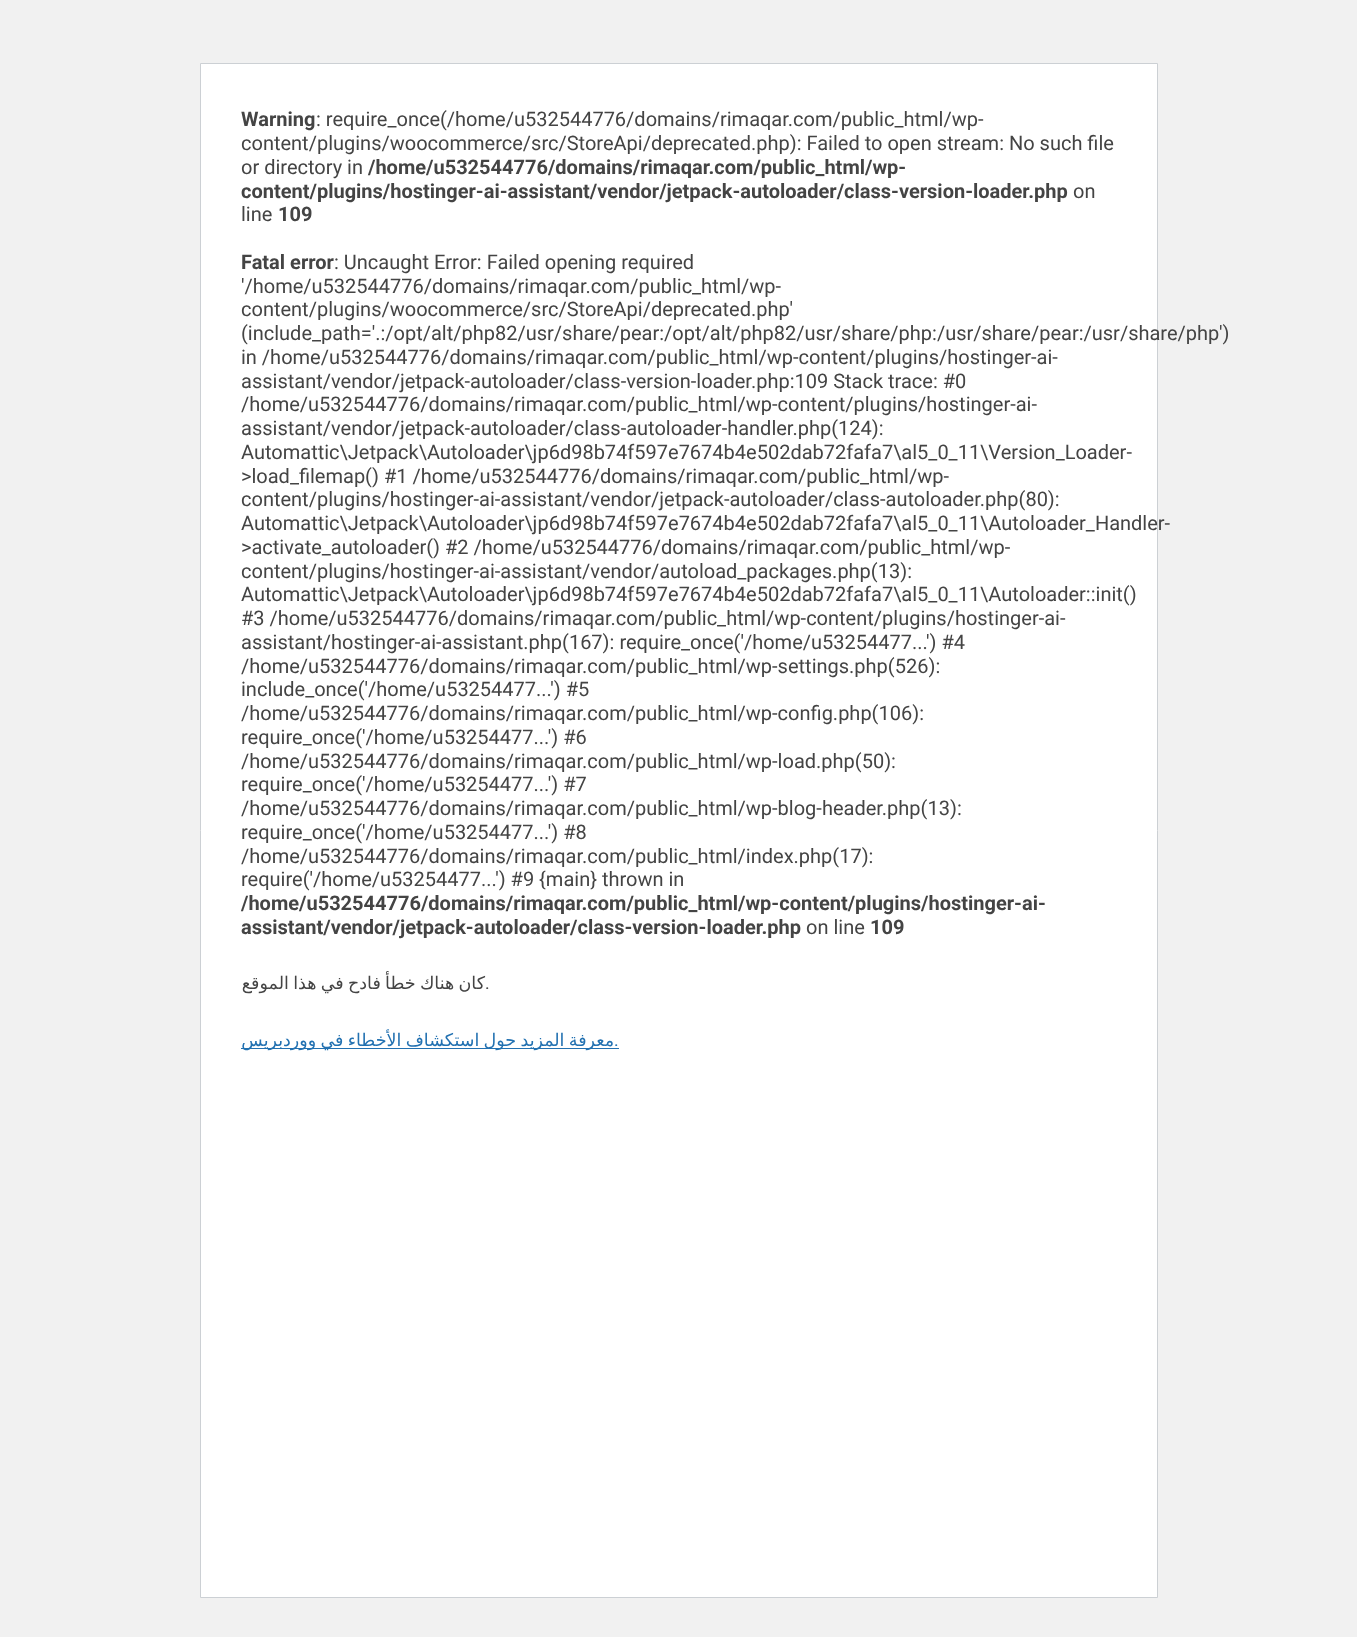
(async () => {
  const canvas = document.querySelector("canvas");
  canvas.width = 1357;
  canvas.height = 1637;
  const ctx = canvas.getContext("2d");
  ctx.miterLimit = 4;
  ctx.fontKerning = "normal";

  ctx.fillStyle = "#f1f1f1";
  ctx.fillRect(0, 0, 1357, 1637);
  ctx.fillStyle = "#ffffff";
  ctx.beginPath();
  ctx.rect(200.5, 63.5, 957, 1534);
  ctx.fill();
  ctx.strokeStyle = "#ccd0d4";
  ctx.stroke();
  ctx.fillStyle = "#2271b1";
  ctx.fillRect(241, 1048, 378, 1);
  ctx.font = "bold 20px Roboto";
  ctx.fillStyle = "#444444";
  ctx.fillText("Warning", 241, 126);
  ctx.font = "20px Roboto";
  for (const [text, x, y] of [
    [": require_once(/home/u532544776/domains/rimaqar.com/public_html/wp-", 316, 126],
    ["content/plugins/woocommerce/src/StoreApi/deprecated.php): Failed to open stream: No such file", 241, 150],
    ["or directory in", 241, 174],
  ]) {
    ctx.fillText(text, x, y);
  }
  ctx.font = "bold 20px Roboto";
  ctx.fillText("/home/u532544776/domains/rimaqar.com/public_html/wp-", 368, 174);
  ctx.fillText("content/plugins/hostinger-ai-assistant/vendor/jetpack-autoloader/class-version-loader.php", 241, 198);
  ctx.font = "20px Roboto";
  ctx.fillText("on", 1073, 198);
  ctx.fillText("line", 241, 221);
  ctx.font = "bold 20px Roboto";
  ctx.fillText("109", 278, 221);
  ctx.fillText("Fatal error", 241, 269);
  ctx.font = "20px Roboto";
  for (const [text, x, y] of [
    [": Uncaught Error: Failed opening required", 334, 269],
    ["'/home/u532544776/domains/rimaqar.com/public_html/wp-", 241, 293],
    ["content/plugins/woocommerce/src/StoreApi/deprecated.php'", 241, 316],
    ["(include_path='.:/opt/alt/php82/usr/share/pear:/opt/alt/php82/usr/share/php:/usr/share/pear:/usr/share/php')", 241, 340],
    ["in /home/u532544776/domains/rimaqar.com/public_html/wp-content/plugins/hostinger-ai-", 241, 364],
    ["assistant/vendor/jetpack-autoloader/class-version-loader.php:109 Stack trace: #0", 241, 388],
    ["/home/u532544776/domains/rimaqar.com/public_html/wp-content/plugins/hostinger-ai-", 241, 411],
    ["assistant/vendor/jetpack-autoloader/class-autoloader-handler.php(124):", 241, 435],
    ["Automattic\\Jetpack\\Autoloader\\jp6d98b74f597e7674b4e502dab72fafa7\\al5_0_11\\Version_Loader-", 241, 459],
    [">load_filemap() #1 /home/u532544776/domains/rimaqar.com/public_html/wp-", 241, 483],
    ["content/plugins/hostinger-ai-assistant/vendor/jetpack-autoloader/class-autoloader.php(80):", 241, 506],
    ["Automattic\\Jetpack\\Autoloader\\jp6d98b74f597e7674b4e502dab72fafa7\\al5_0_11\\Autoloader_Handler-", 241, 530],
    [">activate_autoloader() #2 /home/u532544776/domains/rimaqar.com/public_html/wp-", 241, 554],
    ["content/plugins/hostinger-ai-assistant/vendor/autoload_packages.php(13):", 241, 578],
    ["Automattic\\Jetpack\\Autoloader\\jp6d98b74f597e7674b4e502dab72fafa7\\al5_0_11\\Autoloader::init()", 241, 601],
    ["#3 /home/u532544776/domains/rimaqar.com/public_html/wp-content/plugins/hostinger-ai-", 241, 625],
    ["assistant/hostinger-ai-assistant.php(167): require_once('/home/u53254477...') #4", 241, 649],
    ["/home/u532544776/domains/rimaqar.com/public_html/wp-settings.php(526):", 241, 673],
    ["include_once('/home/u53254477...') #5", 241, 696],
    ["/home/u532544776/domains/rimaqar.com/public_html/wp-config.php(106):", 241, 720],
    ["require_once('/home/u53254477...') #6", 241, 744],
    ["/home/u532544776/domains/rimaqar.com/public_html/wp-load.php(50):", 241, 768],
    ["require_once('/home/u53254477...') #7", 241, 791],
    ["/home/u532544776/domains/rimaqar.com/public_html/wp-blog-header.php(13):", 241, 815],
    ["require_once('/home/u53254477...') #8", 241, 839],
    ["/home/u532544776/domains/rimaqar.com/public_html/index.php(17):", 241, 863],
    ["require('/home/u53254477...') #9 {main} thrown in", 241, 886],
  ]) {
    ctx.fillText(text, x, y);
  }
  ctx.font = "bold 20px Roboto";
  ctx.fillText("/home/u532544776/domains/rimaqar.com/public_html/wp-content/plugins/hostinger-ai-", 241, 910);
  ctx.fillText("assistant/vendor/jetpack-autoloader/class-version-loader.php", 241, 934);
  ctx.font = "20px Roboto";
  ctx.fillText("on line", 806, 934);
  ctx.font = "bold 20px Roboto";
  ctx.fillText("109", 870, 934);
  ctx.wordSpacing = "-1.25px";
  ctx.direction = "rtl";
  ctx.font = "17.5px DejaVu Sans";
  ctx.fillText("كان هناك خطأ فادح في هذا الموقع", 485, 989);
  ctx.wordSpacing = "0px";
  ctx.direction = "ltr";
  ctx.font = "17.5px Roboto";
  ctx.fillText(".", 485, 989);
  ctx.wordSpacing = "-1.25px";
  ctx.direction = "rtl";
  ctx.font = "17.5px DejaVu Sans";
  ctx.fillStyle = "#2271b1";
  ctx.fillText("معرفة المزيد حول استكشاف الأخطاء في ووردبريس", 614, 1046);
  ctx.wordSpacing = "0px";
  ctx.direction = "ltr";
  ctx.font = "17.5px Roboto";
  ctx.fillText(".", 614, 1046);
})();
